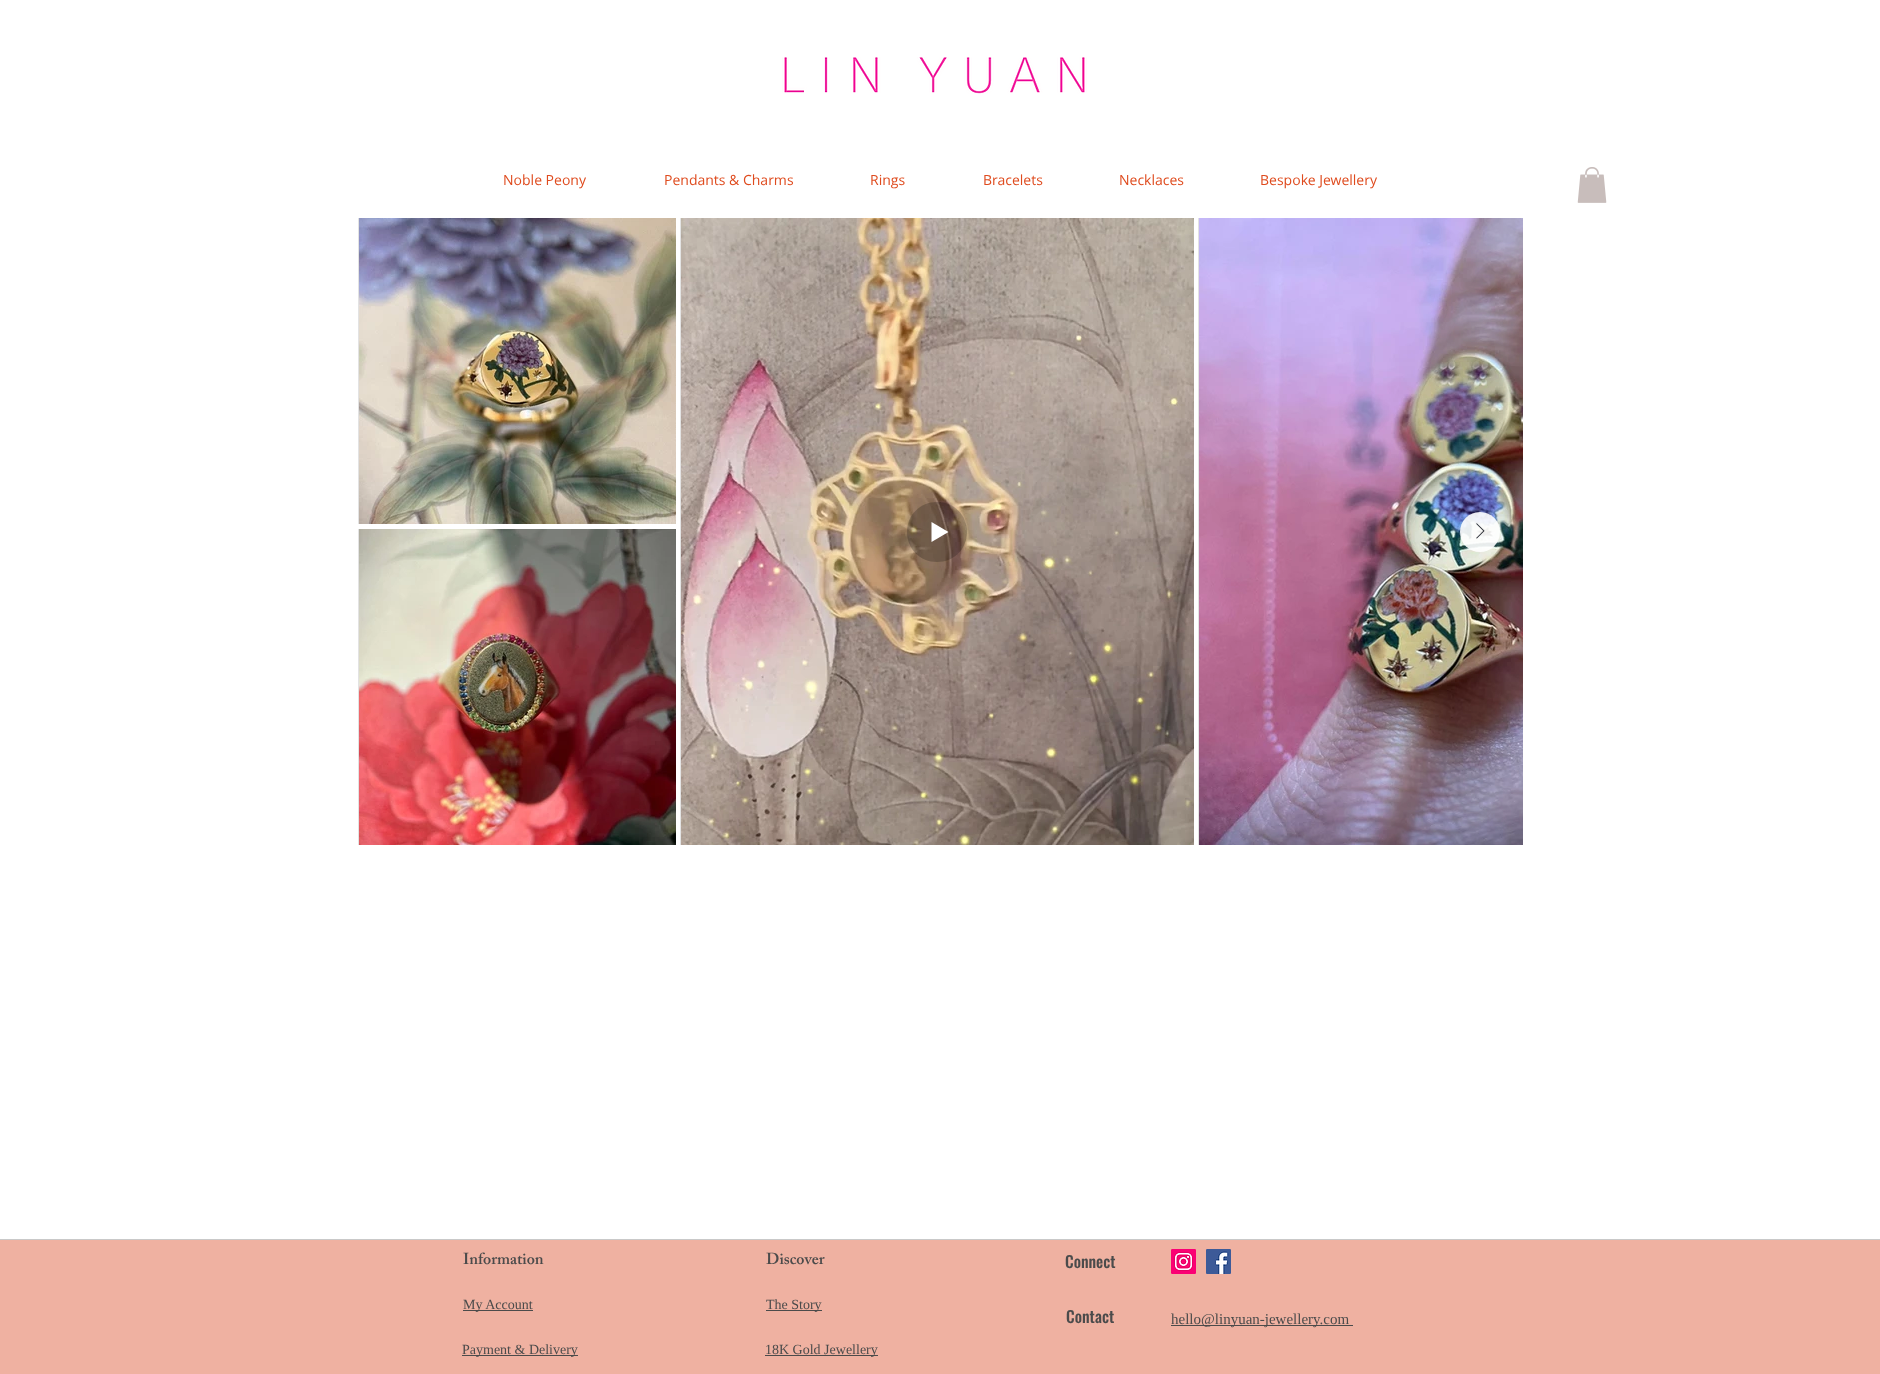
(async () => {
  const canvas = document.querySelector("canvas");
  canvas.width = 1880;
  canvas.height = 1374;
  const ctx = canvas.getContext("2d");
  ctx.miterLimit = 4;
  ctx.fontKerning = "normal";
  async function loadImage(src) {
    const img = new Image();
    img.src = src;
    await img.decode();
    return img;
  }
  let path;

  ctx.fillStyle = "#ffffff";
  ctx.fillRect(0, 0, 1880, 1374);
  ctx.drawImage(await loadImage("img/1.png"), 782, 57, 305, 37);
  ctx.drawImage(await loadImage("img/2.png"), 1577, 167, 30, 36);
  ctx.fillStyle = "#e3e3e3";
  ctx.fillRect(358, 218, 1, 306);
  ctx.drawImage(await loadImage("img/3.png"), 359, 218, 317, 306);
  ctx.fillRect(358, 529, 1, 316);
  ctx.drawImage(await loadImage("img/4.png"), 359, 529, 317, 316);
  ctx.fillRect(680, 218, 1, 627);
  ctx.drawImage(await loadImage("img/5.png"), 681, 218, 513, 627);
  ctx.fillStyle = "rgba(0, 0, 0, 0.21)";
  path = new Path2D("M937 502C954 502 967 515 967 532C967 549 954 562 937 562C920 562 907 549 907 532C907 515 920 502 937 502Z");
  ctx.fill(path, "evenodd");
  ctx.fillStyle = "#ffffff";
  path = new Path2D("M948.5 532L931.5 542V522Z");
  ctx.fill(path);
  ctx.fillStyle = "#e3e3e3";
  ctx.fillRect(1198, 218, 1, 627);
  ctx.drawImage(await loadImage("img/6.png"), 1199, 218, 324, 627);
  ctx.fillStyle = "rgba(255, 255, 255, 0.9)";
  ctx.beginPath();
  ctx.arc(1480, 532, 20, 0, Math.PI * 2);
  ctx.fill();
  ctx.drawImage(await loadImage("img/7.png"), 1476, 523, 9, 16);
  ctx.fillStyle = "#efb1a1";
  ctx.fillRect(0, 1240, 1880, 134);
  ctx.fillStyle = "#c9c9c9";
  ctx.fillRect(0, 1239, 1880, 1);
  ctx.drawImage(await loadImage("img/8.png"), 1171, 1249, 25, 25);
  ctx.drawImage(await loadImage("img/9.png"), 1206, 1249, 25, 25);
  for (const [x, y, w, h, color] of [
    [463, 1310, 70, 1, "#4b4b4b"],
    [766, 1310, 56, 1, "#4b4b4b"],
    [1171, 1325, 182, 1, "#4b4b4b"],
    [462, 1355, 116, 1, "#4b4b4b"],
    [765, 1355, 113, 1, "#4b4b4b"],
  ]) {
    ctx.fillStyle = color;
    ctx.fillRect(x, y, w, h);
  }
  ctx.font = "14px Open Sans";
  ctx.fillStyle = "#df4b1e";
  for (const [text, x, y] of [
    ["Noble Peony", 503, 185],
    ["Pendants & Charms", 664, 185],
    ["Rings", 870, 185],
    ["Bracelets", 983, 185],
    ["Necklaces", 1119, 185],
    ["Bespoke Jewellery", 1260, 185],
  ]) {
    ctx.fillText(text, x, y);
  }
  ctx.font = "600 16px 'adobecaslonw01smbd'";
  ctx.fillStyle = "#4b4b4b";
  ctx.fillText("Information", 463, 1264);
  ctx.fillText("Discover", 766, 1264);
  ctx.font = "500 16px Oswald";
  ctx.fillText("Connect", 1065, 1268);
  ctx.font = "14px Liberation Serif";
  ctx.fillText("My Account", 463, 1309);
  ctx.fillText("The Story", 766, 1309);
  ctx.font = "500 16px Oswald";
  ctx.fillText("Contact", 1066, 1323);
  ctx.font = "15px Liberation Serif";
  ctx.fillText("hello@linyuan-jewellery.com", 1171, 1324);
  ctx.font = "14px Liberation Serif";
  ctx.fillText("Payment & Delivery", 462, 1354);
  ctx.fillText("18K Gold Jewellery", 765, 1354);
})();
